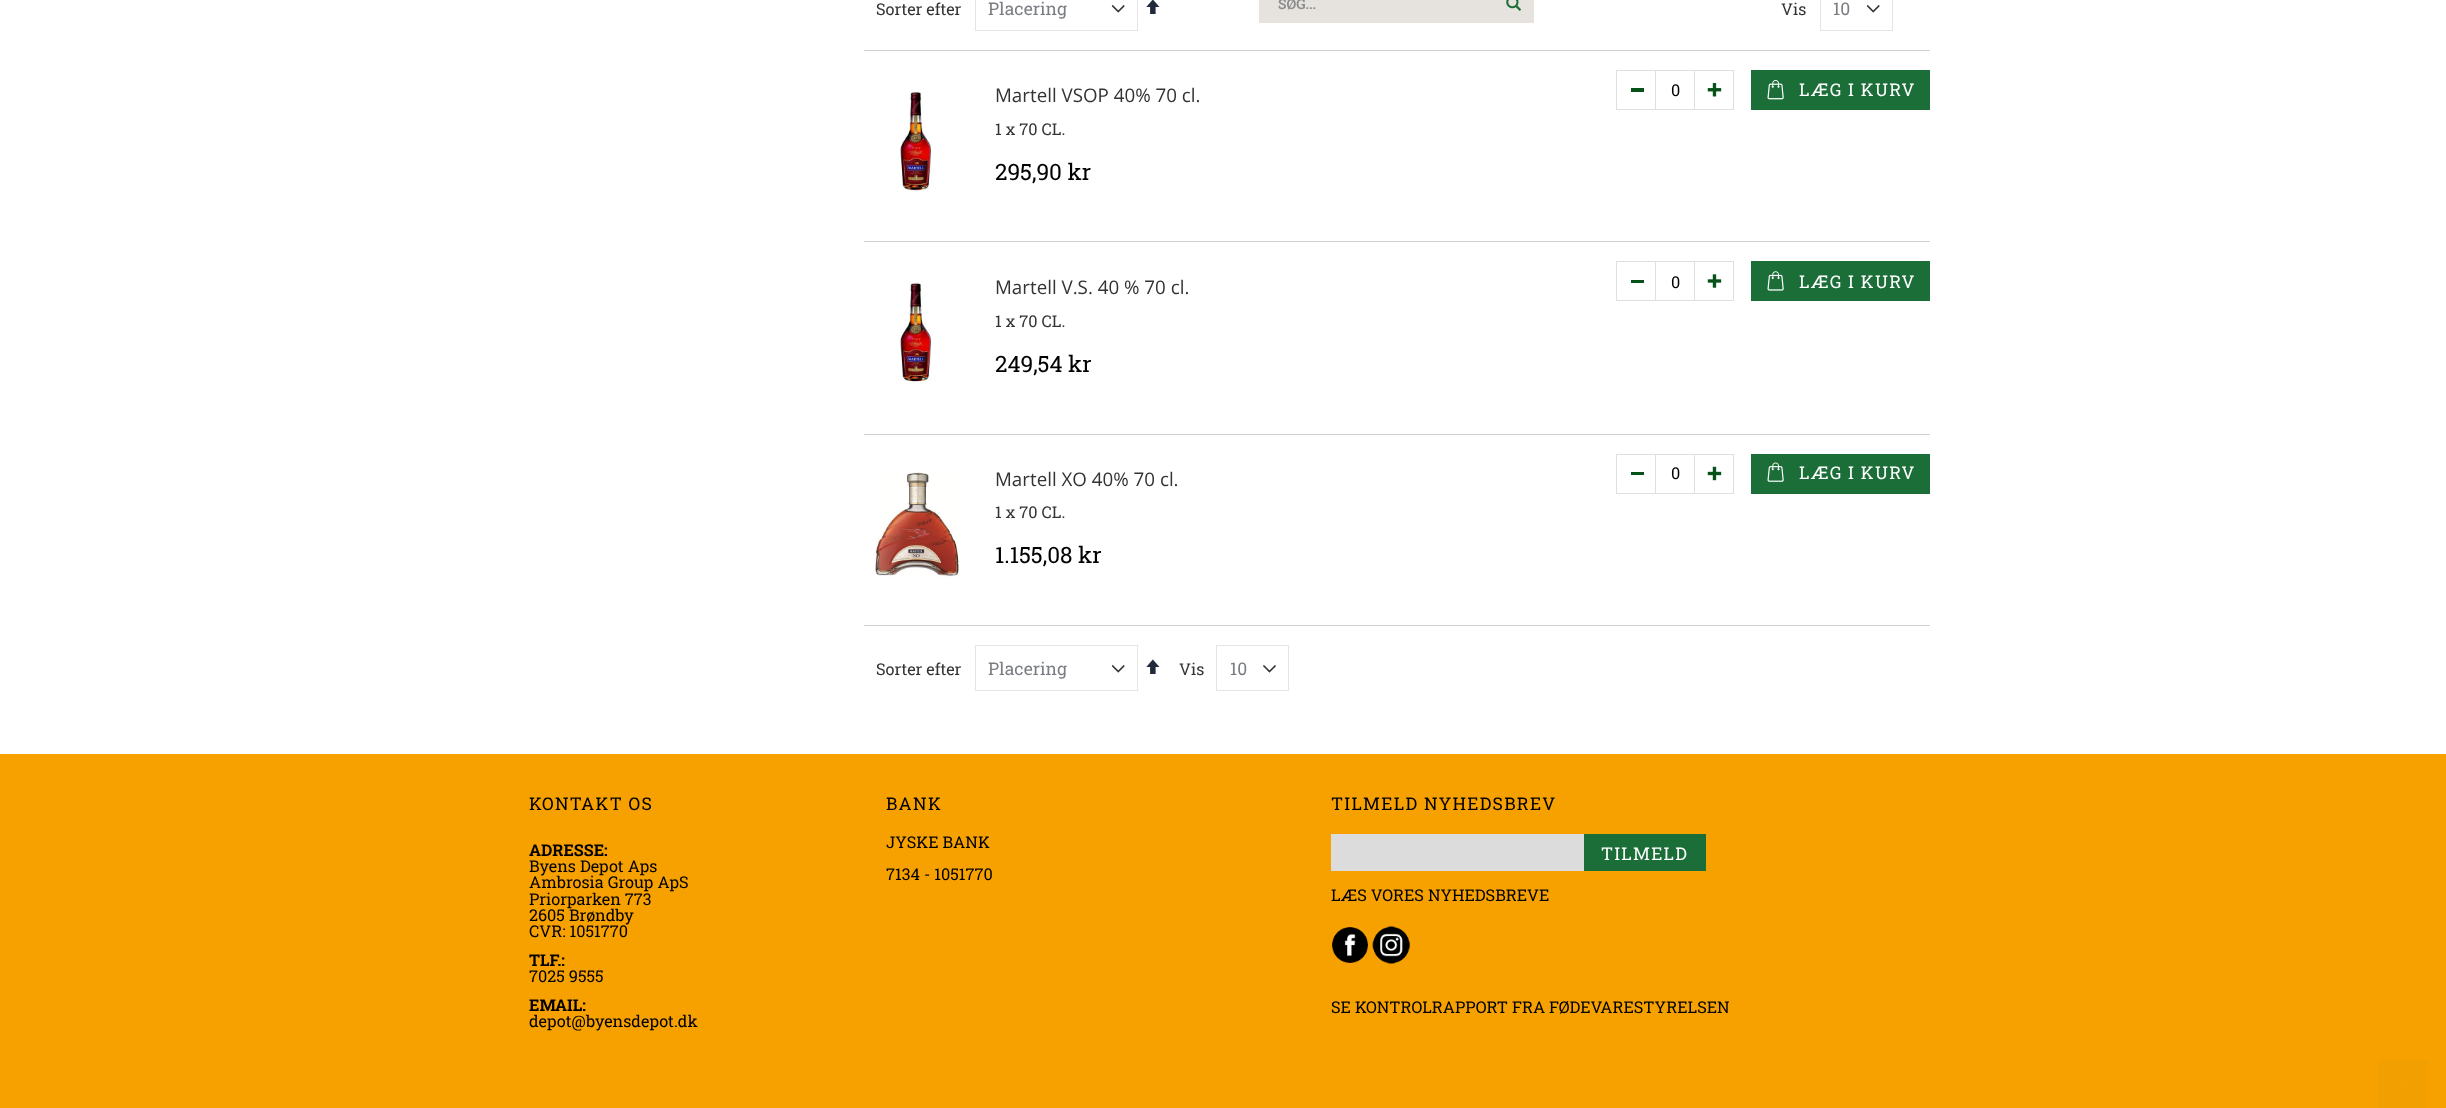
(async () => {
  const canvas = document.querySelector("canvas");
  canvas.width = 2446;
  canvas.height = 1108;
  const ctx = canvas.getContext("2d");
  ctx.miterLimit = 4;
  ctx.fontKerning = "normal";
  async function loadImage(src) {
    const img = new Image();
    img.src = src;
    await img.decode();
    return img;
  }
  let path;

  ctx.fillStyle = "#ffffff";
  ctx.fillRect(0, 0, 2446, 1108);
  ctx.drawImage(await loadImage("img/1.png"), 1111, 4, 14, 9);
  ctx.strokeStyle = "#e4e4e4";
  ctx.strokeRect(975.5, -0.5, 162, 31);
  ctx.drawImage(await loadImage("img/2.png"), 1146, 0, 14, 14);
  ctx.fillStyle = "#e6e3df";
  ctx.fillRect(1259, 0, 275, 23);
  ctx.drawImage(await loadImage("img/3.png"), 1506, 0, 15, 11);
  ctx.drawImage(await loadImage("img/1.png"), 1866, 4, 14, 9);
  ctx.strokeRect(1820.5, -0.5, 72, 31);
  ctx.fillStyle = "#d1d1d1";
  ctx.fillRect(864, 50, 1066, 1);
  ctx.fillRect(864, 241, 1066, 1);
  ctx.drawImage(await loadImage("img/4.png"), 899, 91, 33, 100);
  ctx.strokeStyle = "#dfdfdf";
  ctx.strokeRect(1655.5, 70.5, 39, 39);
  ctx.strokeRect(1616.5, 70.5, 39, 39);
  ctx.fillStyle = "#075219";
  ctx.fillRect(1631, 88, 13, 4);
  ctx.strokeRect(1694.5, 70.5, 39, 39);
  ctx.drawImage(await loadImage("img/5.png"), 1707, 83, 15, 14);
  ctx.fillStyle = "#1c6e38";
  ctx.fillRect(1751, 70, 179, 40);
  ctx.drawImage(await loadImage("img/6.png"), 1767, 80, 17, 20);
  ctx.fillStyle = "#d1d1d1";
  ctx.fillRect(864, 434, 1066, 1);
  ctx.drawImage(await loadImage("img/7.png"), 899, 282, 33, 100);
  ctx.strokeRect(1655.5, 261.5, 39, 39);
  ctx.strokeRect(1616.5, 261.5, 39, 39);
  ctx.fillStyle = "#075219";
  ctx.fillRect(1631, 280, 13, 3);
  ctx.strokeRect(1694.5, 261.5, 39, 39);
  ctx.drawImage(await loadImage("img/8.png"), 1707, 274, 15, 14);
  ctx.fillStyle = "#1c6e38";
  ctx.fillRect(1751, 261, 179, 40);
  ctx.drawImage(await loadImage("img/9.png"), 1767, 271, 17, 20);
  ctx.fillStyle = "#d1d1d1";
  ctx.fillRect(864, 625, 1066, 1);
  ctx.drawImage(await loadImage("img/10.png"), 875, 472, 85, 106);
  ctx.strokeRect(1655.5, 454.5, 39, 39);
  ctx.strokeRect(1616.5, 454.5, 39, 39);
  ctx.fillStyle = "#075219";
  ctx.fillRect(1631, 472, 13, 3);
  ctx.strokeRect(1694.5, 454.5, 39, 39);
  ctx.drawImage(await loadImage("img/11.png"), 1707, 466, 15, 15);
  ctx.fillStyle = "#1c6e38";
  ctx.fillRect(1751, 454, 179, 40);
  ctx.drawImage(await loadImage("img/12.png"), 1767, 462, 17, 20);
  ctx.drawImage(await loadImage("img/1.png"), 1111, 664, 14, 9);
  ctx.strokeStyle = "#e4e4e4";
  ctx.strokeRect(975.5, 645.5, 162, 45);
  ctx.drawImage(await loadImage("img/13.png"), 1146, 659, 14, 15);
  ctx.drawImage(await loadImage("img/14.png"), 1263, 664, 13, 9);
  ctx.strokeRect(1216.5, 645.5, 72, 45);
  for (const [x, y, w, h, color] of [
    [0, 754, 2446, 354, "#f7a100"],
    [1331, 834, 253, 37, "#dcdcdc"],
    [1584, 834, 122, 37, "#1c6e38"],
  ]) {
    ctx.fillStyle = color;
    ctx.fillRect(x, y, w, h);
  }
  ctx.drawImage(await loadImage("img/15.png"), 1332, 927, 36, 36);
  ctx.drawImage(await loadImage("img/16.png"), 1372, 926, 38, 38);
  ctx.fillStyle = "#f29f02";
  path = new Path2D("M2384 1059H2422C2425.5 1059 2428 1061.5 2428 1065V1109H2378V1065C2378 1061.5 2380.5 1059 2384 1059Z");
  ctx.fill(path);
  ctx.drawImage(await loadImage("img/17.png"), 2397, 1080, 10, 6);
  ctx.font = "16.25px Roboto Slab";
  ctx.fillStyle = "#333333";
  ctx.fillText("Sorter efter", 876, 15);
  ctx.font = "17.5px Roboto Slab";
  ctx.fillStyle = "#7a7d82";
  ctx.fillText("Placering", 988, 15);
  ctx.font = "600 14px Roboto Slab";
  ctx.fillStyle = "#8d8d8d";
  ctx.fillText("SØG...", 1278, 9);
  ctx.font = "16.25px Roboto Slab";
  ctx.fillStyle = "#333333";
  ctx.fillText("Vis", 1781, 15);
  ctx.font = "17.5px Roboto Slab";
  ctx.fillStyle = "#7a7d82";
  ctx.fillText("10", 1833, 15);
  ctx.font = "18.75px Open Sans";
  ctx.fillStyle = "#333333";
  ctx.fillText("Martell VSOP 40% 70 cl.", 995, 102);
  ctx.font = "16.25px Roboto Slab";
  ctx.fillText("1 x 70 CL.", 995, 135);
  ctx.font = "22.5px Roboto Slab";
  ctx.fillStyle = "#000000";
  ctx.fillText("295,90 kr", 995, 180);
  ctx.font = "16.25px Roboto Slab";
  ctx.fillText("0", 1671, 96);
  ctx.letterSpacing = "1.25px";
  ctx.font = "17.5px Roboto Slab";
  ctx.fillStyle = "#ffffff";
  ctx.fillText("LÆG I KURV", 1799, 96);
  ctx.letterSpacing = "0px";
  ctx.font = "18.75px Open Sans";
  ctx.fillStyle = "#333333";
  ctx.fillText("Martell V.S. 40 % 70 cl.", 995, 294);
  ctx.font = "16.25px Roboto Slab";
  ctx.fillText("1 x 70 CL.", 995, 327);
  ctx.font = "22.5px Roboto Slab";
  ctx.fillStyle = "#000000";
  ctx.fillText("249,54 kr", 995, 372);
  ctx.font = "16.25px Roboto Slab";
  ctx.fillText("0", 1671, 288);
  ctx.letterSpacing = "1.25px";
  ctx.font = "17.5px Roboto Slab";
  ctx.fillStyle = "#ffffff";
  ctx.fillText("LÆG I KURV", 1799, 288);
  ctx.letterSpacing = "0px";
  ctx.font = "18.75px Open Sans";
  ctx.fillStyle = "#333333";
  ctx.fillText("Martell XO 40% 70 cl.", 995, 486);
  ctx.font = "16.25px Roboto Slab";
  ctx.fillText("1 x 70 CL.", 995, 518);
  ctx.font = "22.5px Roboto Slab";
  ctx.fillStyle = "#000000";
  ctx.fillText("1.155,08 kr", 995, 563);
  ctx.font = "16.25px Roboto Slab";
  ctx.fillText("0", 1671, 479);
  ctx.letterSpacing = "1.25px";
  ctx.font = "17.5px Roboto Slab";
  ctx.fillStyle = "#ffffff";
  ctx.fillText("LÆG I KURV", 1799, 479);
  ctx.letterSpacing = "0px";
  ctx.font = "16.25px Roboto Slab";
  ctx.fillStyle = "#333333";
  ctx.fillText("Sorter efter", 876, 675);
  ctx.font = "17.5px Roboto Slab";
  ctx.fillStyle = "#7a7d82";
  ctx.fillText("Placering", 988, 675);
  ctx.font = "16.25px Roboto Slab";
  ctx.fillStyle = "#333333";
  ctx.fillText("Vis", 1179, 675);
  ctx.font = "17.5px Roboto Slab";
  ctx.fillStyle = "#7a7d82";
  ctx.fillText("10", 1230, 675);
  ctx.letterSpacing = "1.3px";
  ctx.fillStyle = "#000000";
  ctx.fillText("KONTAKT OS", 529, 810);
  ctx.letterSpacing = "0px";
  ctx.font = "bold 16.25px Roboto Slab";
  ctx.fillText("ADRESSE:", 529, 856);
  ctx.font = "16.25px Roboto Slab";
  for (const [text, x, y] of [
    ["Byens Depot Aps", 529, 872],
    ["Ambrosia Group ApS", 529, 888],
    ["Priorparken 773", 529, 905],
    ["2605 Brøndby", 529, 921],
    ["CVR: 1051770", 529, 937],
  ]) {
    ctx.fillText(text, x, y);
  }
  ctx.font = "bold 16.25px Roboto Slab";
  ctx.fillText("TLF.:", 529, 966);
  ctx.font = "16.25px Roboto Slab";
  ctx.fillText("7025 9555", 529, 982);
  ctx.font = "bold 16.25px Roboto Slab";
  ctx.fillText("EMAIL:", 529, 1011);
  ctx.font = "16.25px Roboto Slab";
  ctx.fillText("depot@byensdepot.dk", 529, 1027);
  ctx.letterSpacing = "1.3px";
  ctx.font = "17.5px Roboto Slab";
  ctx.fillText("BANK", 886, 810);
  ctx.letterSpacing = "0px";
  ctx.font = "16.25px Roboto Slab";
  ctx.fillText("JYSKE BANK", 886, 848);
  ctx.fillText("7134 - 1051770", 886, 880);
  ctx.letterSpacing = "1.3px";
  ctx.font = "17.5px Roboto Slab";
  ctx.fillText("TILMELD NYHEDSBREV", 1331, 810);
  ctx.letterSpacing = "1.25px";
  ctx.fillStyle = "#ffffff";
  ctx.fillText("TILMELD", 1601, 860);
  ctx.letterSpacing = "0px";
  ctx.font = "16.25px Roboto Slab";
  ctx.fillStyle = "#000000";
  ctx.fillText("LÆS VORES NYHEDSBREVE", 1331, 901);
  ctx.fillText("SE KONTROLRAPPORT FRA FØDEVARESTYRELSEN", 1331, 1013);
})();
